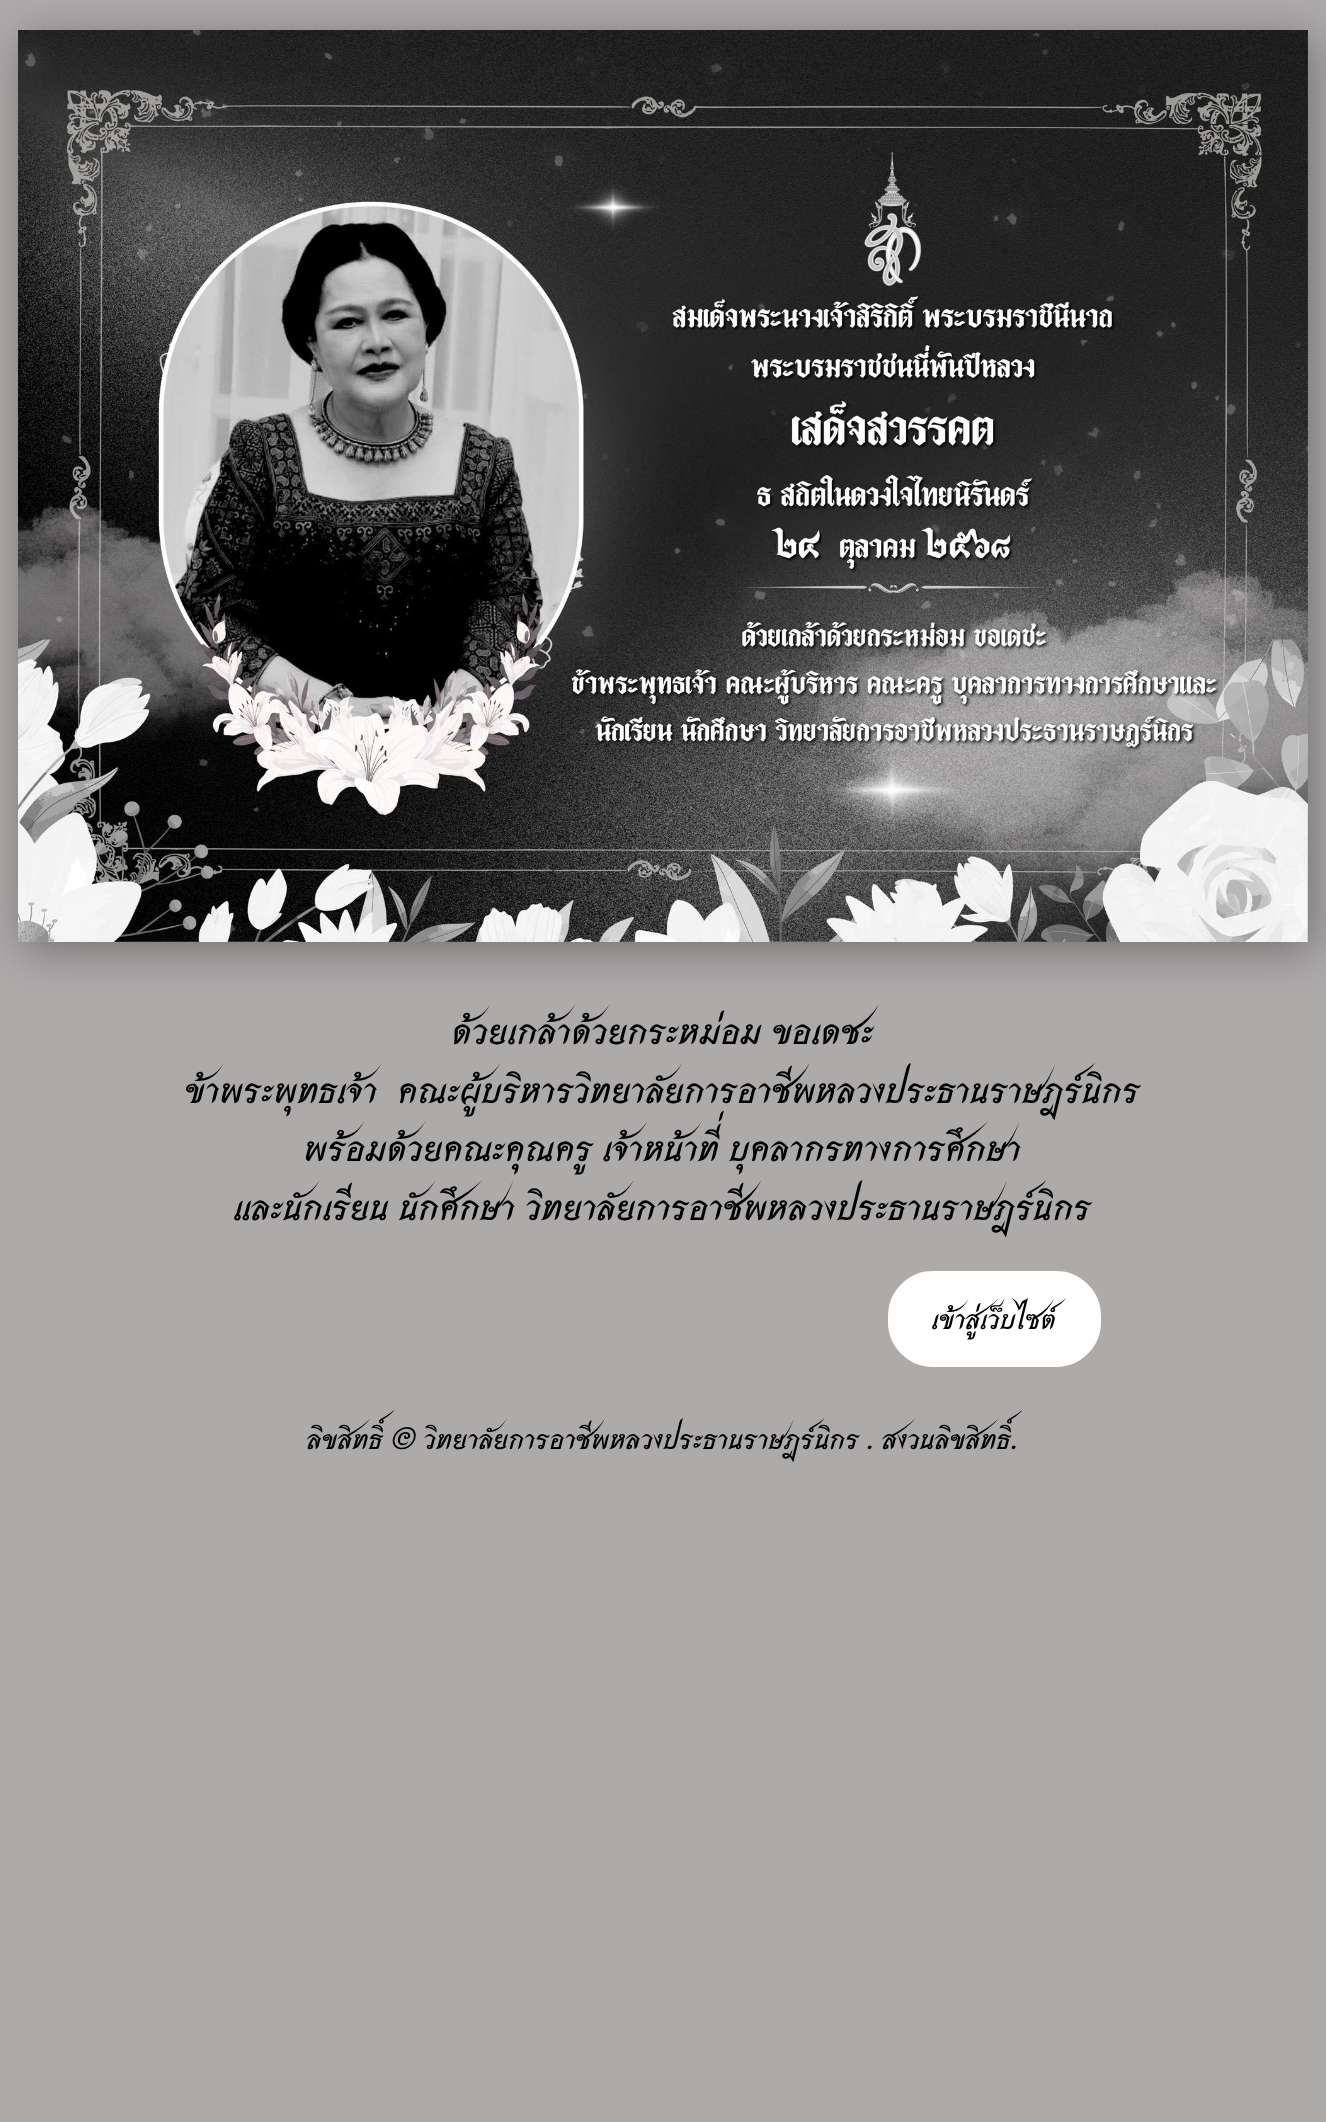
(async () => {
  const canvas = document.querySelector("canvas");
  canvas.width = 1326;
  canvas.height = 2122;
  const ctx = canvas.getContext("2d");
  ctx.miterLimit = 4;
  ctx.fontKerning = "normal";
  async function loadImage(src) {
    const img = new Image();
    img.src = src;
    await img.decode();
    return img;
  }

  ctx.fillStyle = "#adaaaa";
  ctx.fillRect(0, 0, 1326, 2122);
  ctx.fillStyle = "rgba(0, 0, 0, 0.35)";
  ctx.filter = "blur(22.5px)";
  ctx.beginPath();
  ctx.rect(23, 38, 1290, 912);
  ctx.fill();
  ctx.filter = "none";
  ctx.drawImage(await loadImage("img/1.png"), 18, 30, 1290, 912);
  ctx.fillStyle = "#ffffff";
  ctx.beginPath();
  ctx.roundRect(892, 1275, 205, 88, 41);
  ctx.fill();
  ctx.strokeStyle = "#fffefc";
  ctx.lineWidth = 8;
  ctx.stroke();
  ctx.font = "bold 39px Srisakdi";
  ctx.fillStyle = "#000000";
  for (const [text, x, y] of [
    ["ด้วยเกล้าด้วยกระหม่อม ขอเดชะ", 452, 1044],
    ["ข้าพระพุทธเจ้า  คณะผู้บริหารวิทยาลัยการอาชีพหลวงประธานราษฎร์นิกร", 185, 1103],
    ["พร้อมด้วยคณะคุณครู เจ้าหน้าที่ บุคลากรทางการศึกษา", 304, 1161],
    ["และนักเรียน นักศึกษา วิทยาลัยการอาชีพหลวงประธานราษฎร์นิกร", 234, 1220],
  ]) {
    ctx.fillText(text, x, y);
  }
  ctx.font = "bold 30px Srisakdi";
  ctx.fillText("เข้าสู่เว็บไซต์", 932, 1329);
  ctx.fillText("ลิขสิทธิ์ © วิทยาลัยการอาชีพหลวงประธานราษฎร์นิกร . สงวนลิขสิทธิ์.", 307, 1449);
})();
